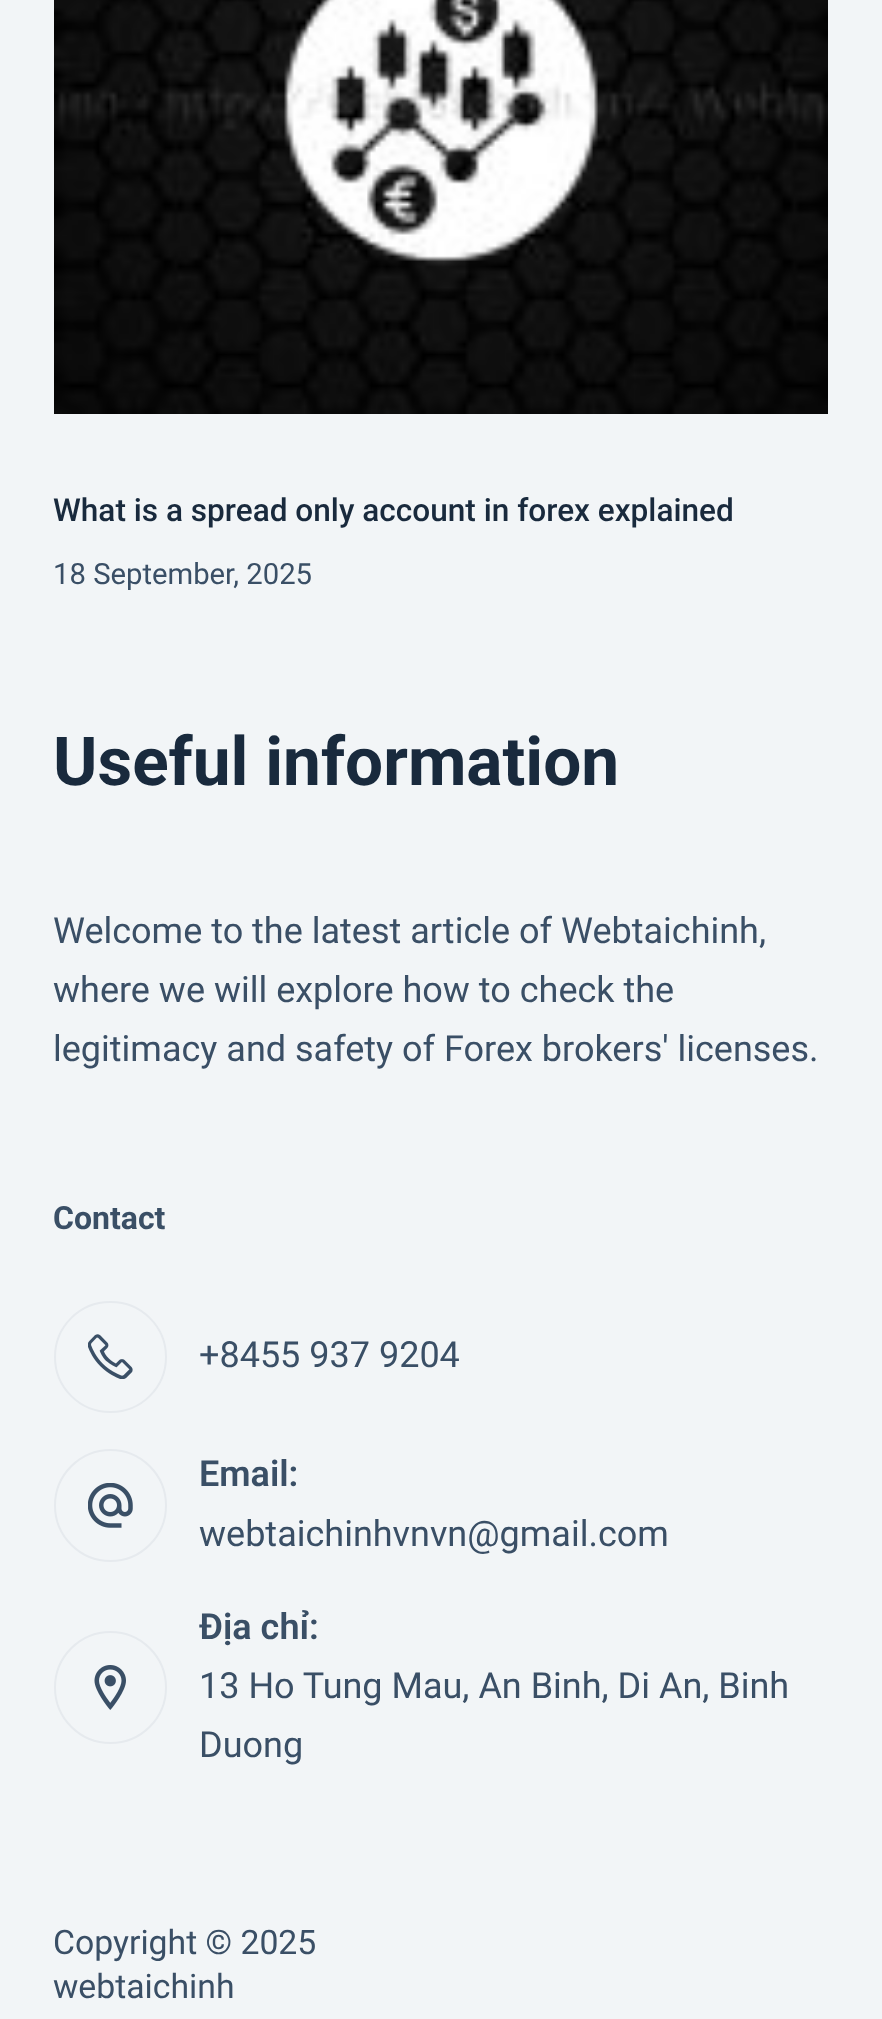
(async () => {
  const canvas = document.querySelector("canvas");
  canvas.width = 882;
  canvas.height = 2019;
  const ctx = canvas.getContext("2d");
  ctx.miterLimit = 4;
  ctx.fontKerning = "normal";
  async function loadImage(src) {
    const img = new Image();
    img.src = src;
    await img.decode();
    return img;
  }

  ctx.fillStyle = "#f2f5f7";
  ctx.fillRect(0, 0, 882, 2019);
  ctx.drawImage(await loadImage("img/1.png"), 54, 0, 774, 414);
  ctx.beginPath();
  ctx.roundRect(55, 1302, 111, 110, 55);
  ctx.strokeStyle = "#e6eaee";
  ctx.lineWidth = 2;
  ctx.stroke();
  ctx.drawImage(await loadImage("img/2.png"), 88, 1334, 45, 45);
  ctx.beginPath();
  ctx.arc(110.5, 1505.5, 55.5, 0, Math.PI * 2);
  ctx.stroke();
  ctx.drawImage(await loadImage("img/3.png"), 88, 1483, 45, 45);
  ctx.beginPath();
  ctx.arc(110.5, 1687.5, 55.5, 0, Math.PI * 2);
  ctx.stroke();
  ctx.drawImage(await loadImage("img/4.png"), 94, 1665, 32, 45);
  ctx.font = "500 31.6px Roboto";
  ctx.fillStyle = "#192a3d";
  ctx.fillText("What is a spread only account in forex explained", 53, 521);
  ctx.font = "29.25px Roboto";
  ctx.fillStyle = "#3a4f66";
  ctx.fillText("18 September, 2025", 53, 584);
  ctx.font = "bold 67.5px Roboto";
  ctx.fillStyle = "#192a3d";
  ctx.fillText("Useful information", 53, 785);
  ctx.font = "36px Roboto";
  ctx.fillStyle = "#3a4f66";
  for (const [text, x, y] of [
    ["Welcome to the latest article of Webtaichinh,", 53, 943],
    ["where we will explore how to check the", 53, 1002],
    ["legitimacy and safety of Forex brokers' licenses.", 53, 1061],
  ]) {
    ctx.fillText(text, x, y);
  }
  ctx.font = "bold 32px Roboto";
  ctx.fillText("Contact", 53, 1229);
  ctx.font = "36px Roboto";
  ctx.fillText("+8455 937 9204", 199, 1367);
  ctx.font = "600 36px Roboto";
  ctx.fillText("Email:", 199, 1486);
  ctx.font = "36px Roboto";
  ctx.fillText("webtaichinhvnvn@gmail.com", 199, 1546);
  ctx.font = "600 36px Roboto";
  ctx.fillText("Địa chỉ:", 199, 1639);
  ctx.font = "36px Roboto";
  ctx.fillText("13 Ho Tung Mau, An Binh, Di An, Binh", 199, 1698);
  ctx.fillText("Duong", 199, 1757);
  ctx.font = "33.75px Roboto";
  ctx.fillText("Copyright © 2025", 53, 1954);
  ctx.fillText("webtaichinh", 53, 1998);
})();
